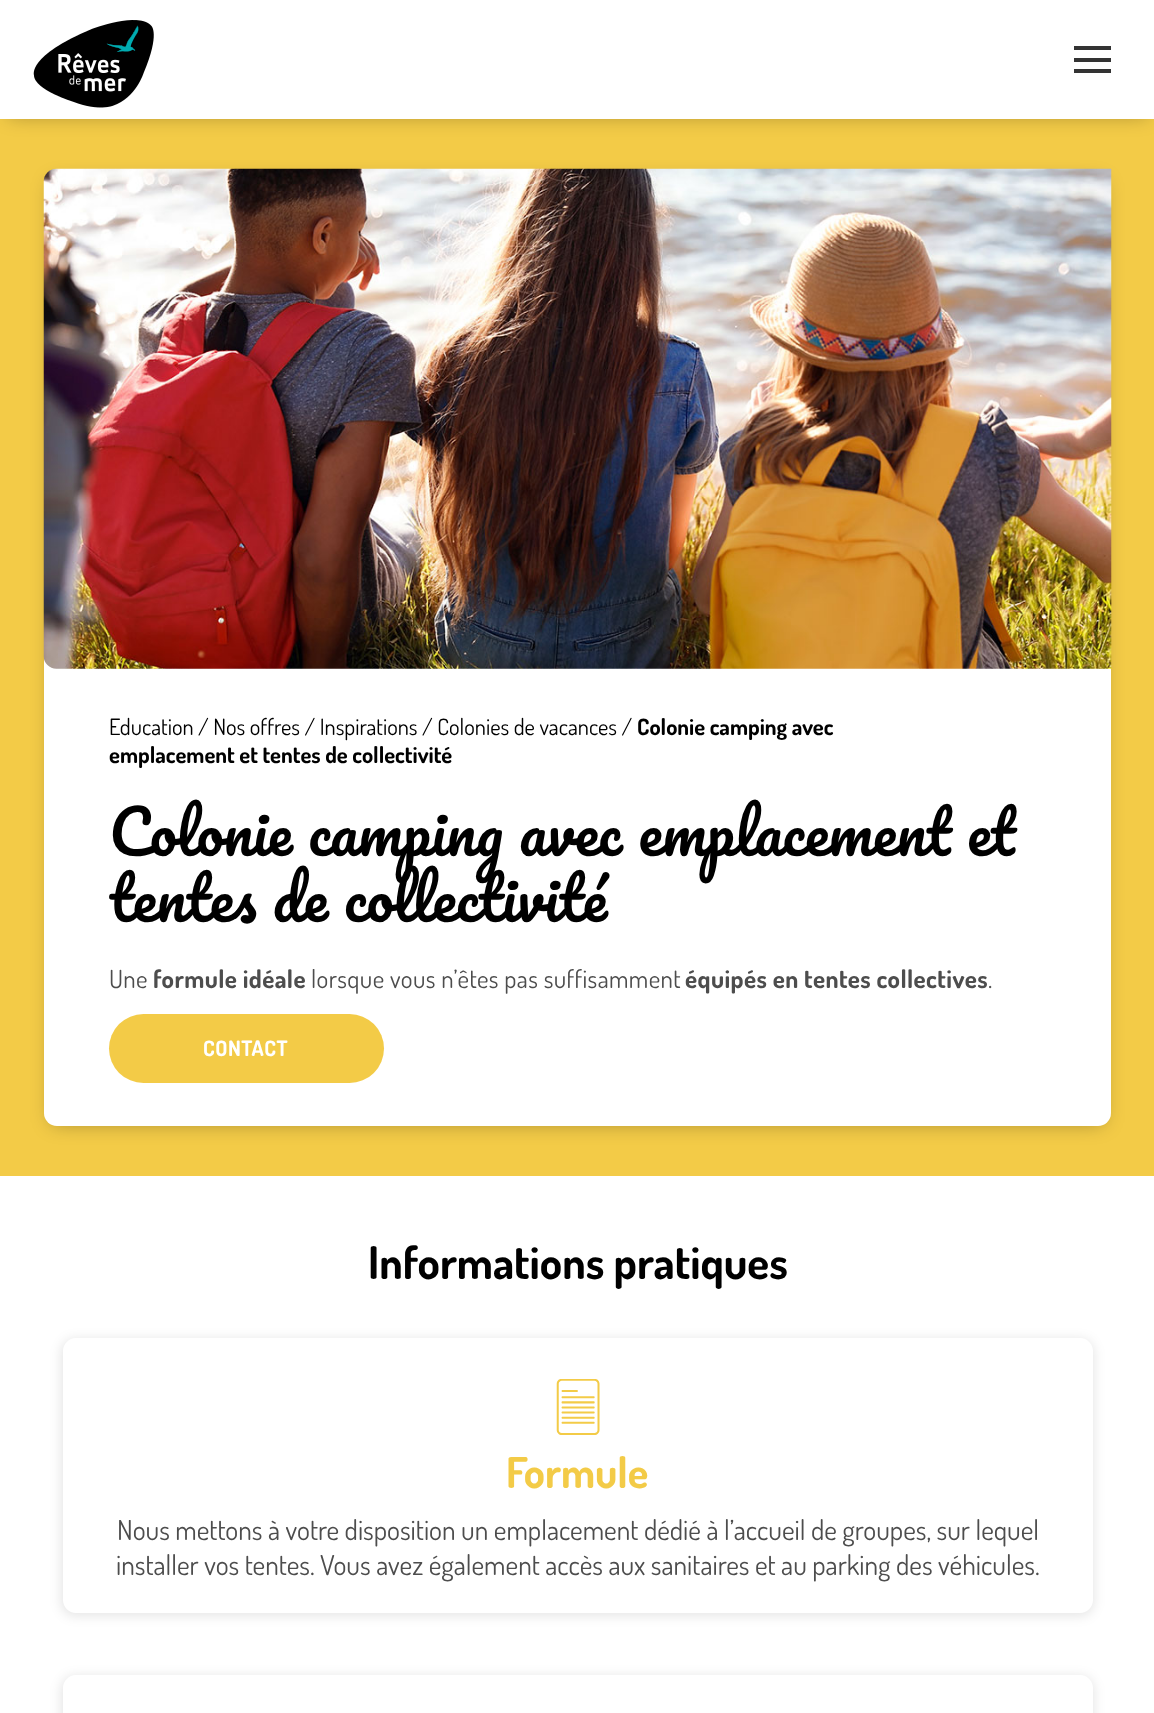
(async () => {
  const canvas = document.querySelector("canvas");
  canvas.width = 1154;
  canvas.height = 1713;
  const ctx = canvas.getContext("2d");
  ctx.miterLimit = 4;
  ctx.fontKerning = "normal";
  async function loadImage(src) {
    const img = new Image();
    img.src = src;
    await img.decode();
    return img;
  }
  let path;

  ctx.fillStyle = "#ffffff";
  ctx.fillRect(0, 0, 1154, 1713);
  ctx.fillStyle = "#f3cb47";
  ctx.fillRect(0, 119, 1154, 1057);
  ctx.fillStyle = "rgba(0, 0, 0, 0.3)";
  ctx.filter = "blur(9.5px)";
  ctx.beginPath();
  ctx.rect(8, 13, 1140, 103);
  ctx.fill();
  ctx.filter = "none";
  ctx.fillStyle = "#ffffff";
  ctx.fillRect(0, 0, 1154, 119);
  ctx.drawImage(await loadImage("img/1.png"), 33, 20, 121, 88);
  for (const [x, y, w, h, color] of [
    [1074, 46, 37, 4, "#333333"],
    [1074, 58, 37, 4, "#333333"],
    [1074, 69, 37, 4, "#333333"],
  ]) {
    ctx.fillStyle = color;
    ctx.fillRect(x, y, w, h);
  }
  ctx.fillStyle = "rgba(0, 0, 0, 0.3)";
  ctx.filter = "blur(9.5px)";
  ctx.beginPath();
  ctx.roundRect(51, 181, 1053, 943, 5);
  ctx.fill();
  ctx.filter = "none";
  ctx.fillStyle = "#ffffff";
  ctx.beginPath();
  ctx.roundRect(44, 169, 1067, 957, 13);
  ctx.fill();
  ctx.drawImage(await loadImage("img/2.png"), 43, 168, 1069, 501);
  ctx.fillStyle = "#f3cb47";
  ctx.beginPath();
  ctx.roundRect(109, 1014, 275, 69, 34.5);
  ctx.fill();
  ctx.save();
  path = new Path2D("M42 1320H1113V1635H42ZM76 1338H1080C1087 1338 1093 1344 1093 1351V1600C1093 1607 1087 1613 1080 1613H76C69 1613 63 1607 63 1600V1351C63 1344 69 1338 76 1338Z");
  ctx.clip(path, "evenodd");
  ctx.fillStyle = "rgba(0, 0, 0, 0.1)";
  ctx.filter = "blur(6px)";
  ctx.beginPath();
  ctx.roundRect(61, 1339, 1033, 277, 14);
  ctx.fill();
  ctx.filter = "none";
  ctx.restore();
  ctx.drawImage(await loadImage("img/3.png"), 556, 1379, 44, 56);
  ctx.save();
  path = new Path2D("M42 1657H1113V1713H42ZM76 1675H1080C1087 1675 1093 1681 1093 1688V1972C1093 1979 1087 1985 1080 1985H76C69 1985 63 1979 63 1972V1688C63 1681 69 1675 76 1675Z");
  ctx.clip(path, "evenodd");
  ctx.fillStyle = "rgba(0, 0, 0, 0.1)";
  ctx.filter = "blur(6px)";
  ctx.beginPath();
  ctx.roundRect(61, 1676, 1033, 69, 14);
  ctx.fill();
  ctx.filter = "none";
  ctx.restore();
  ctx.font = "22.5px Dosis";
  ctx.fillStyle = "#000000";
  ctx.fillText("Education / Nos offres / Inspirations / Colonies de vacances /", 109, 735);
  ctx.font = "bold 22.5px Dosis";
  ctx.fillText("Colonie camping avec", 637, 735);
  ctx.fillText("emplacement et tentes de collectivité", 109, 763);
  ctx.font = "60px Pacifico";
  ctx.fillText("Colonie camping avec emplacement et", 109, 856);
  ctx.fillText("tentes de collectivité", 109, 922);
  ctx.letterSpacing = "0.4px";
  ctx.font = "25px Dosis";
  ctx.fillStyle = "#4d4d4d";
  ctx.fillText("Une", 109, 988);
  ctx.font = "bold 25px Dosis";
  ctx.fillText("formule idéale", 153, 988);
  ctx.font = "25px Dosis";
  ctx.fillText("lorsque vous n’êtes pas suffisamment", 311, 988);
  ctx.font = "bold 25px Dosis";
  ctx.fillText("équipés en tentes collectives", 685, 988);
  ctx.font = "25px Dosis";
  ctx.fillText(".", 988, 988);
  ctx.letterSpacing = "0.5px";
  ctx.font = "bold 21.25px Dosis";
  ctx.fillStyle = "#ffffff";
  ctx.fillText("CONTACT", 203, 1056);
  ctx.letterSpacing = "0px";
  ctx.font = "bold 45px Dosis";
  ctx.fillStyle = "#000000";
  ctx.fillText("Informations pratiques", 368, 1279);
  ctx.font = "bold 42.5px Dosis";
  ctx.fillStyle = "#f3cb47";
  ctx.fillText("Formule", 506, 1488);
  ctx.font = "27.5px Dosis";
  ctx.fillStyle = "#4d4d4d";
  ctx.fillText("Nous mettons à votre disposition un emplacement dédié à l’accueil de groupes, sur lequel", 117, 1540);
  ctx.fillText("installer vos tentes. Vous avez également accès aux sanitaires et au parking des véhicules.", 116, 1575);
})();
